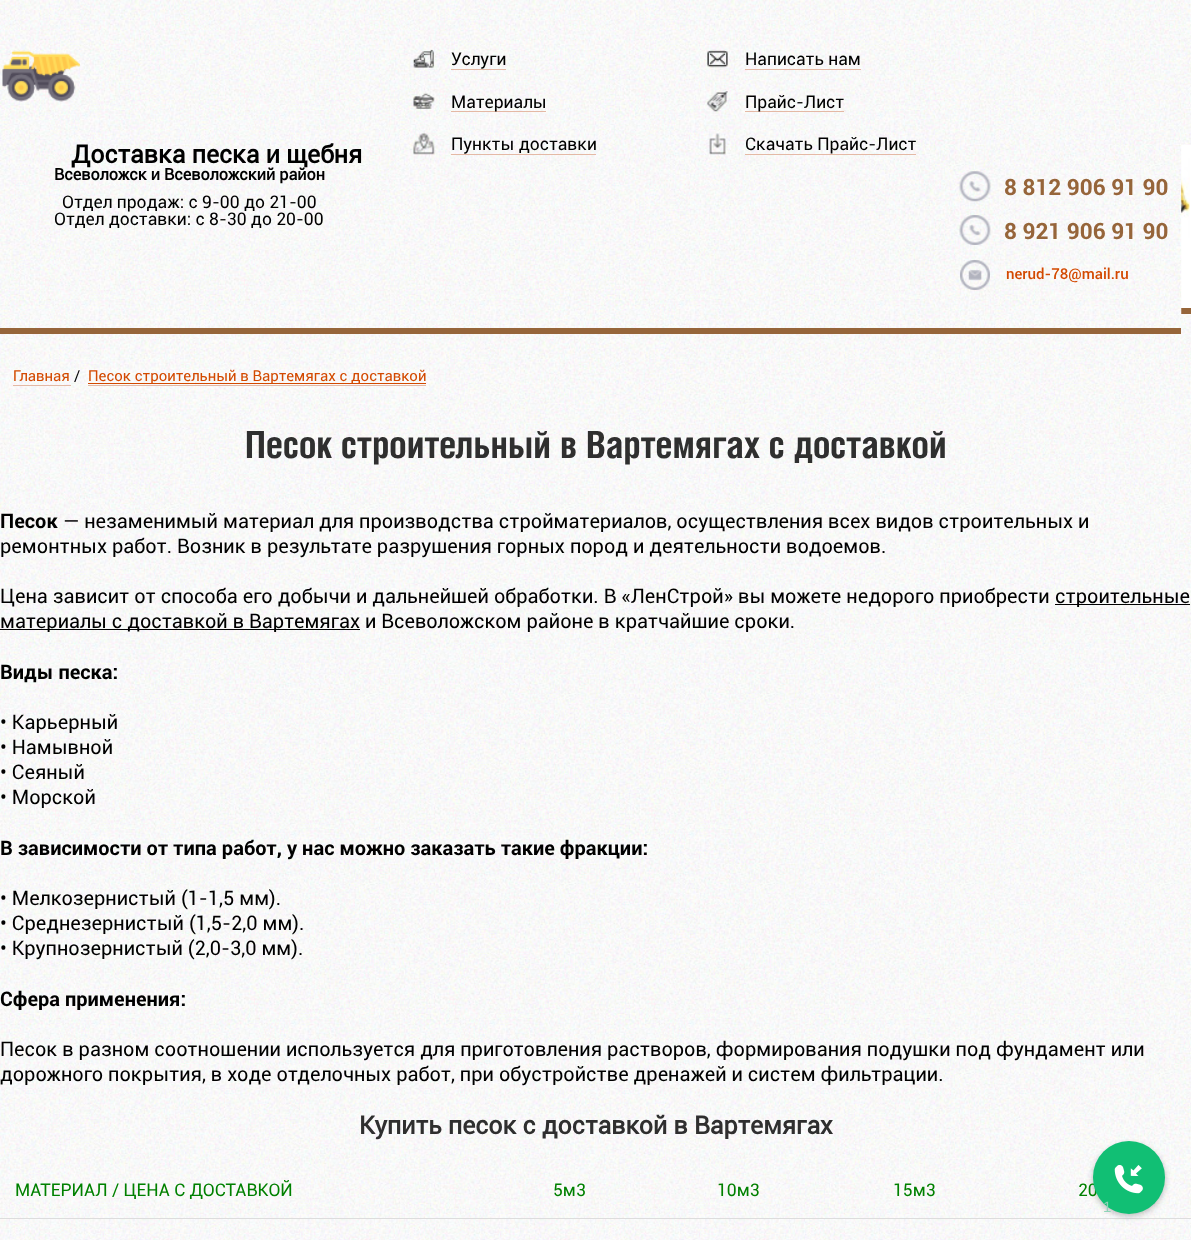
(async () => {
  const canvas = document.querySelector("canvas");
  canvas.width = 1191;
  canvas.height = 1240;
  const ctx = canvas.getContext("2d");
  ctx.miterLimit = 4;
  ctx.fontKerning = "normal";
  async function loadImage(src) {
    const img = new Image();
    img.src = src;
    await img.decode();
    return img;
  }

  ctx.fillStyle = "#ffffff";
  ctx.fillRect(0, 0, 1191, 1240);
  ctx.drawImage(await loadImage("img/1.png"), 0, 0, 1191, 1240);
  ctx.fillRect(1181, 145, 10, 163);
  ctx.fillStyle = "#96653a";
  ctx.fillRect(1181, 308, 10, 6);
  ctx.drawImage(await loadImage("img/13.png"), 1181, 158, 9, 80);
  ctx.drawImage(await loadImage("img/2.png"), 0, 0, 1182, 334);
  ctx.fillRect(0, 328, 1181, 6);
  ctx.drawImage(await loadImage("img/3.png"), 2, 50, 78, 52);
  ctx.drawImage(await loadImage("img/4.png"), 413, 49, 21, 19);
  ctx.fillStyle = "#e4b9a5";
  ctx.fillRect(451, 69, 55, 1);
  ctx.drawImage(await loadImage("img/5.png"), 413, 93, 22, 16);
  ctx.fillRect(451, 111, 95, 1);
  ctx.drawImage(await loadImage("img/6.png"), 413, 133, 22, 22);
  ctx.fillRect(451, 154, 145, 1);
  ctx.drawImage(await loadImage("img/7.png"), 707, 50, 21, 18);
  ctx.fillRect(745, 69, 116, 1);
  ctx.drawImage(await loadImage("img/8.png"), 707, 91, 21, 21);
  ctx.fillRect(745, 111, 99, 1);
  ctx.drawImage(await loadImage("img/9.png"), 709, 133, 17, 22);
  ctx.fillRect(745, 154, 171, 1);
  ctx.drawImage(await loadImage("img/10.png"), 959, 171, 32, 31);
  ctx.drawImage(await loadImage("img/11.png"), 959, 215, 32, 30);
  ctx.drawImage(await loadImage("img/12.png"), 960, 260, 30, 30);
  for (const [x, y, w, h, color] of [
    [13, 385, 58, 1, "#e4b9a5"],
    [88, 385, 338, 1, "#e4b9a5"],
    [88, 383, 338, 1, "#d34900"],
    [1055, 604, 135, 1, "#000000"],
    [0, 629, 360, 1, "#000000"],
    [0, 1218, 1191, 1, "#dddddd"],
  ]) {
    ctx.fillStyle = color;
    ctx.fillRect(x, y, w, h);
  }
  ctx.fillStyle = "rgba(0, 0, 0, 0.26)";
  ctx.filter = "blur(3px)";
  ctx.beginPath();
  ctx.roundRect(1093, 1144, 72, 72, 36);
  ctx.fill();
  ctx.filter = "none";
  ctx.font = "bold 25px 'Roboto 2'";
  ctx.fillStyle = "#000000";
  ctx.fillText("Доставка песка и щебня", 71, 163);
  ctx.font = "bold 16.25px 'Roboto 2'";
  ctx.fillText("Всеволожск и Всеволожский район", 54, 180);
  ctx.font = "17.5px Roboto";
  for (const [text, x, y] of [
    ["Отдел продаж: с 9-00 до 21-00", 62, 208],
    ["Отдел доставки: с 8-30 до 20-00", 54, 225],
    ["Услуги", 451, 65],
    ["Материалы", 451, 108],
    ["Пункты доставки", 451, 150],
    ["Написать нам", 745, 65],
    ["Прайс-Лист", 745, 108],
    ["Скачать Прайс-Лист", 745, 150],
  ]) {
    ctx.fillText(text, x, y);
  }
  ctx.font = "bold 22.5px Roboto";
  ctx.fillStyle = "#96653a";
  ctx.fillText("8 812 906 91 90", 1004, 195);
  ctx.fillText("8 921 906 91 90", 1004, 239);
  ctx.font = "500 15px Roboto";
  ctx.fillStyle = "#d34900";
  ctx.fillText("nerud-78@mail.ru", 1006, 279);
  ctx.font = "15px Roboto";
  ctx.fillText("Главная", 13, 381);
  ctx.fillStyle = "#000000";
  ctx.fillText("/", 74, 381);
  ctx.fillStyle = "#d34900";
  ctx.fillText("Песок строительный в Вартемягах с доставкой", 88, 381);
  ctx.font = "bold 37.5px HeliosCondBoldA";
  ctx.fillStyle = "#2f2f2f";
  ctx.fillText("Песок строительный в Вартемягах с доставкой", 245, 458);
  ctx.font = "bold 20px Roboto";
  ctx.fillStyle = "#000000";
  ctx.fillText("Песок", 0, 528);
  ctx.font = "20px Roboto";
  for (const [text, x, y] of [
    ["— незаменимый материал для производства стройматериалов, осуществления всех видов строительных и", 63, 528],
    ["ремонтных работ. Возник в результате разрушения горных пород и деятельности водоемов.", 0, 553],
    ["Цена зависит от способа его добычи и дальнейшей обработки. В «ЛенСтрой» вы можете недорого приобрести", 0, 603],
    ["строительные", 1055, 603],
    ["материалы с доставкой в Вартемягах и Всеволожском районе в кратчайшие сроки.", 0, 628],
  ]) {
    ctx.fillText(text, x, y);
  }
  ctx.font = "bold 20px Roboto";
  ctx.fillText("Виды песка:", 0, 679);
  ctx.font = "20px Roboto";
  for (const [text, x, y] of [
    ["• Карьерный", 0, 729],
    ["• Намывной", 0, 754],
    ["• Сеяный", 0, 779],
    ["• Морской", 0, 804],
  ]) {
    ctx.fillText(text, x, y);
  }
  ctx.font = "bold 20px Roboto";
  ctx.fillText("В зависимости от типа работ, у нас можно заказать такие фракции:", 0, 855);
  ctx.font = "20px Roboto";
  for (const [text, x, y] of [
    ["• Мелкозернистый (1-1,5 мм).", 0, 905],
    ["• Среднезернистый (1,5-2,0 мм).", 0, 930],
    ["• Крупнозернистый (2,0-3,0 мм).", 0, 955],
  ]) {
    ctx.fillText(text, x, y);
  }
  ctx.font = "bold 20px Roboto";
  ctx.fillText("Сфера применения:", 0, 1006);
  ctx.font = "20px Roboto";
  ctx.fillText("Песок в разном соотношении используется для приготовления растворов, формирования подушки под фундамент или", 0, 1056);
  ctx.fillText("дорожного покрытия, в ходе отделочных работ, при обустройстве дренажей и систем фильтрации.", 0, 1081);
  ctx.font = "bold 25px 'Roboto 2'";
  ctx.fillStyle = "#2f2f2f";
  ctx.fillText("Купить песок с доставкой в Вартемягах", 359, 1134);
  ctx.font = "17.5px Roboto";
  ctx.fillStyle = "#008000";
  for (const [text, x, y] of [
    ["МАТЕРИАЛ / ЦЕНА С ДОСТАВКОЙ", 15, 1196],
    ["5м3", 553, 1196],
    ["10м3", 717, 1196],
    ["15м3", 893, 1196],
    ["20", 1078, 1196],
  ]) {
    ctx.fillText(text, x, y);
  }
  ctx.fillStyle = "#11bf74";
  ctx.beginPath();
  ctx.roundRect(1093, 1141, 72, 73, 36);
  ctx.fill();
  ctx.drawImage(await loadImage("img/14.png"), 1114, 1165, 29, 29);
  ctx.font = "15px Liberation Sans";
  ctx.fillStyle = "#8fd4b7";
  ctx.fillText("1", 1103, 1212);
})();
